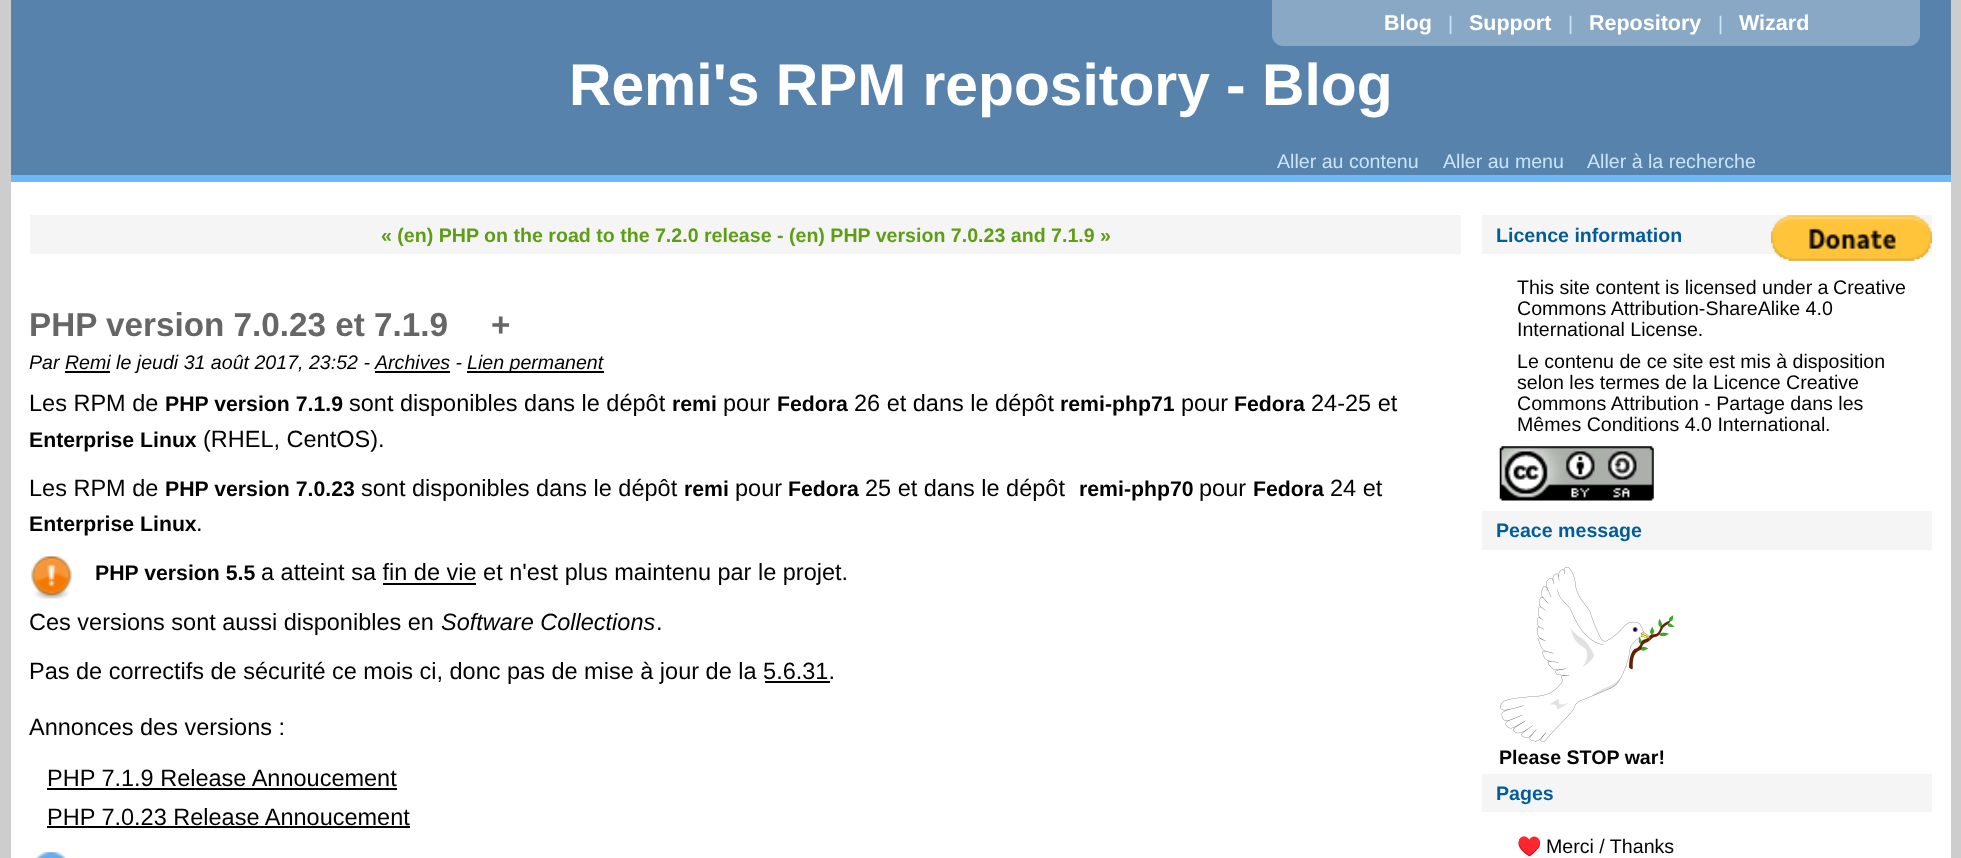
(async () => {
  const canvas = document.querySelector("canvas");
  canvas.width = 1961;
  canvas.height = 858;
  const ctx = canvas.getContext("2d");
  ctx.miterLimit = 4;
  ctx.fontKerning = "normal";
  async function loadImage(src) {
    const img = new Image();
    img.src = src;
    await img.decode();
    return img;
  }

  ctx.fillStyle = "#cdcdcd";
  ctx.fillRect(0, 0, 1961, 858);
  ctx.fillStyle = "#ffffff";
  ctx.fillRect(11, 182, 1940, 676);
  ctx.fillStyle = "#5782ac";
  ctx.fillRect(11, 0, 1940, 175);
  ctx.fillStyle = "#89a8c5";
  ctx.beginPath();
  ctx.roundRect(1272, 0, 648, 46, [0, 0, 11, 11]);
  ctx.fill();
  for (const [x, y, w, h, color] of [
    [11, 175, 1940, 7, "#6db9f7"],
    [30, 215, 1431, 39, "#f5f5f5"],
    [375, 371, 75, 2, "#000000"],
    [467, 371, 137, 2, "#000000"],
    [65, 371, 45, 2, "#000000"],
  ]) {
    ctx.fillStyle = color;
    ctx.fillRect(x, y, w, h);
  }
  ctx.drawImage(await loadImage("img/1.png"), 31, 556, 41, 43);
  for (const [x, y, w, h, color] of [
    [383, 583, 93, 2, "#000000"],
    [765, 681, 65, 2, "#000000"],
    [47, 788, 350, 2, "#000000"],
    [47, 826, 363, 2, "#000000"],
  ]) {
    ctx.fillStyle = color;
    ctx.fillRect(x, y, w, h);
  }
  ctx.drawImage(await loadImage("img/2.png"), 35, 852, 32, 6);
  ctx.fillStyle = "#f5f5f5";
  ctx.fillRect(1482, 215, 450, 39);
  ctx.drawImage(await loadImage("img/3.png"), 1771, 215, 161, 46);
  ctx.drawImage(await loadImage("img/4.png"), 1499, 446, 155, 55);
  ctx.fillRect(1482, 511, 450, 39);
  ctx.drawImage(await loadImage("img/5.png"), 1500, 567, 175, 175);
  ctx.fillRect(1482, 774, 450, 38);
  ctx.font = "bold 21.5px Liberation Sans";
  ctx.fillStyle = "#ffffff";
  ctx.fillText("Blog", 1384, 30);
  ctx.font = "19.6px Liberation Sans";
  ctx.fillStyle = "#cae4fc";
  ctx.fillText("|", 1448, 30);
  ctx.font = "bold 21.5px Liberation Sans";
  ctx.fillStyle = "#ffffff";
  ctx.fillText("Support", 1469, 30);
  ctx.font = "19.6px Liberation Sans";
  ctx.fillStyle = "#cae4fc";
  ctx.fillText("|", 1568, 30);
  ctx.font = "bold 21.5px Liberation Sans";
  ctx.fillStyle = "#ffffff";
  ctx.fillText("Repository", 1589, 30);
  ctx.font = "19.6px Liberation Sans";
  ctx.fillStyle = "#cae4fc";
  ctx.fillText("|", 1718, 30);
  ctx.font = "bold 21.5px Liberation Sans";
  ctx.fillStyle = "#ffffff";
  ctx.fillText("Wizard", 1739, 30);
  ctx.font = "bold 58.75px Liberation Sans";
  ctx.fillText("Remi's RPM repository - Blog", 569, 105);
  ctx.font = "19.6px Liberation Sans";
  ctx.fillStyle = "#cae4fc";
  for (const [text, x, y] of [
    ["Aller au contenu", 1277, 168],
    ["Aller au menu", 1443, 168],
    ["Aller à la recherche", 1587, 168],
  ]) {
    ctx.fillText(text, x, y);
  }
  ctx.font = "bold 19.6px Liberation Sans";
  ctx.fillStyle = "#5e9e14";
  ctx.fillText("« (en) PHP on the road to the 7.2.0 release", 381, 242);
  ctx.fillText("- (en) PHP version 7.0.23 and 7.1.9 »", 777, 242);
  ctx.font = "bold 33.25px Liberation Sans";
  ctx.fillStyle = "#666666";
  ctx.fillText("PHP version 7.0.23 et 7.1.9", 29, 336);
  ctx.fillText("+", 491, 336);
  ctx.font = "italic 19.6px Liberation Sans";
  ctx.fillStyle = "#000000";
  for (const [text, x, y] of [
    ["Par Remi le jeudi 31 août 2017, 23:52 -", 29, 369],
    ["Archives -", 375, 369],
    ["Lien permanent", 467, 369],
  ]) {
    ctx.fillText(text, x, y);
  }
  ctx.font = "23.5px Liberation Sans";
  ctx.fillText("Les RPM de", 29, 411);
  ctx.font = "bold 21.25px Liberation Sans";
  ctx.fillText("PHP version 7.1.9", 165, 411);
  ctx.font = "23.5px Liberation Sans";
  ctx.fillText("sont disponibles dans le dépôt", 349, 411);
  ctx.font = "bold 21.25px Liberation Sans";
  ctx.fillText("remi", 672, 411);
  ctx.font = "23.5px Liberation Sans";
  ctx.fillText("pour", 723, 411);
  ctx.font = "bold 21.25px Liberation Sans";
  ctx.fillText("Fedora", 777, 411);
  ctx.font = "23.5px Liberation Sans";
  ctx.fillText("26 et dans le dépôt", 854, 411);
  ctx.font = "bold 21.25px Liberation Sans";
  ctx.fillText("remi-php71", 1060, 411);
  ctx.font = "23.5px Liberation Sans";
  ctx.fillText("pour", 1181, 411);
  ctx.font = "bold 21.25px Liberation Sans";
  ctx.fillText("Fedora", 1234, 411);
  ctx.font = "23.5px Liberation Sans";
  ctx.fillText("24-25 et", 1311, 411);
  ctx.font = "bold 21.25px Liberation Sans";
  ctx.fillText("Enterprise Linux", 29, 447);
  ctx.font = "23.5px Liberation Sans";
  ctx.fillText("(RHEL, CentOS).", 203, 447);
  ctx.fillText("Les RPM de", 29, 496);
  ctx.font = "bold 21.25px Liberation Sans";
  ctx.fillText("PHP version 7.0.23", 165, 496);
  ctx.font = "23.5px Liberation Sans";
  ctx.fillText("sont disponibles dans le dépôt", 361, 496);
  ctx.font = "bold 21.25px Liberation Sans";
  ctx.fillText("remi", 684, 496);
  ctx.font = "23.5px Liberation Sans";
  ctx.fillText("pour", 735, 496);
  ctx.font = "bold 21.25px Liberation Sans";
  ctx.fillText("Fedora", 788, 496);
  ctx.font = "23.5px Liberation Sans";
  ctx.fillText("25 et dans le dépôt", 865, 496);
  ctx.font = "bold 21.25px Liberation Sans";
  ctx.fillText("remi-php70", 1079, 496);
  ctx.font = "23.5px Liberation Sans";
  ctx.fillText("pour", 1199, 496);
  ctx.font = "bold 21.25px Liberation Sans";
  ctx.fillText("Fedora", 1253, 496);
  ctx.font = "23.5px Liberation Sans";
  ctx.fillText("24 et", 1330, 496);
  ctx.font = "bold 21.25px Liberation Sans";
  ctx.fillText("Enterprise Linux", 29, 531);
  ctx.font = "23.5px Liberation Sans";
  ctx.fillText(".", 196, 531);
  ctx.font = "bold 21.25px Liberation Sans";
  ctx.fillText("PHP version 5.5", 95, 580);
  ctx.font = "23.5px Liberation Sans";
  ctx.fillText("a atteint sa fin de vie et n'est plus maintenu par le projet.", 261, 580);
  ctx.fillText("Ces versions sont aussi disponibles en", 29, 630);
  ctx.font = "italic 23.5px Liberation Sans";
  ctx.fillText("Software Collections", 441, 630);
  ctx.font = "23.5px Liberation Sans";
  for (const [text, x, y] of [
    [".", 656, 630],
    ["Pas de correctifs de sécurité ce mois ci, donc pas de mise à jour de la 5.6.31.", 29, 679],
    ["Annonces des versions :", 29, 735],
    ["PHP 7.1.9 Release Annoucement", 47, 786],
    ["PHP 7.0.23 Release Annoucement", 47, 825],
  ]) {
    ctx.fillText(text, x, y);
  }
  ctx.font = "bold 19.6px Liberation Sans";
  ctx.fillStyle = "#005d99";
  ctx.fillText("Licence information", 1496, 242);
  ctx.font = "19.6px Liberation Sans";
  ctx.fillStyle = "#000000";
  for (const [text, x, y] of [
    ["This site content is licensed under a", 1517, 294],
    ["Creative", 1833, 294],
    ["Commons Attribution-ShareAlike 4.0", 1517, 315],
    ["International License.", 1517, 336],
    ["Le contenu de ce site est mis à disposition", 1517, 368],
    ["selon les termes de la Licence Creative", 1517, 389],
    ["Commons Attribution - Partage dans les", 1517, 410],
    ["Mêmes Conditions 4.0 International", 1517, 431],
    [".", 1825, 431],
  ]) {
    ctx.fillText(text, x, y);
  }
  ctx.font = "bold 19.6px Liberation Sans";
  ctx.fillStyle = "#005d99";
  ctx.fillText("Peace message", 1496, 537);
  ctx.fillStyle = "#000000";
  ctx.fillText("Please STOP war!", 1499, 764);
  ctx.fillStyle = "#005d99";
  ctx.fillText("Pages", 1496, 800);
  ctx.font = "19.6px Noto Color Emoji";
  ctx.fillStyle = "#000000";
  ctx.fillText("♥️", 1517, 853);
  ctx.font = "19.6px Liberation Sans";
  ctx.fillText("Merci / Thanks", 1546, 853);
})();
